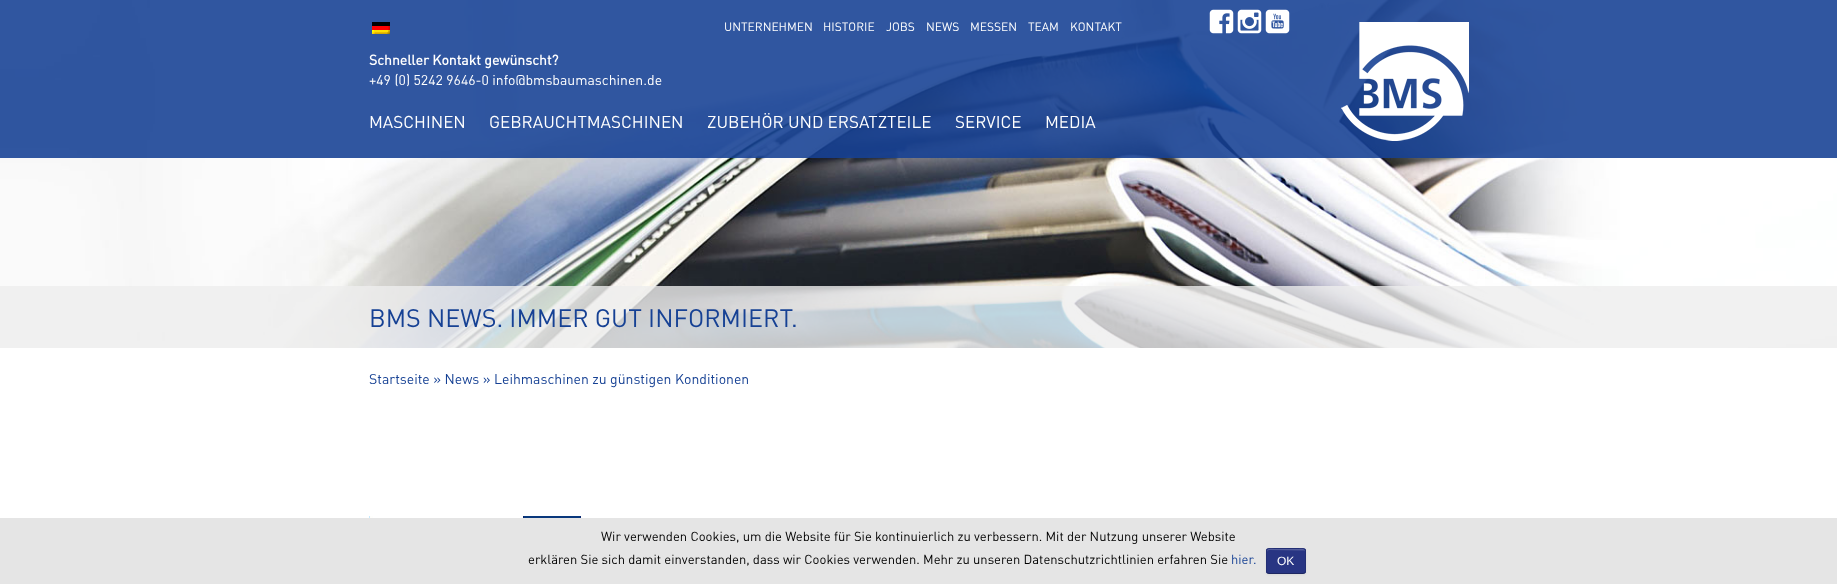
(async () => {
  const canvas = document.querySelector("canvas");
  canvas.width = 1837;
  canvas.height = 584;
  const ctx = canvas.getContext("2d");
  ctx.miterLimit = 4;
  ctx.fontKerning = "normal";
  async function loadImage(src) {
    const img = new Image();
    img.src = src;
    await img.decode();
    return img;
  }
  let path;

  ctx.fillStyle = "#ffffff";
  ctx.fillRect(0, 0, 1837, 584);
  ctx.drawImage(await loadImage("img/6.png"), 0, 0, 1837, 348);
  ctx.fillStyle = "rgba(22, 65, 148, 0.89)";
  ctx.fillRect(0, 0, 1837, 72);
  ctx.drawImage(await loadImage("img/1.png"), 372, 22, 18, 12);
  ctx.drawImage(await loadImage("img/2.png"), 1209, 9, 25, 25);
  ctx.drawImage(await loadImage("img/3.png"), 1237, 9, 25, 25);
  ctx.drawImage(await loadImage("img/4.png"), 1265, 9, 25, 25);
  ctx.fillRect(0, 72, 1837, 86);
  ctx.drawImage(await loadImage("img/5.png"), 1341, 22, 128, 119);
  ctx.fillStyle = "rgba(238, 238, 238, 0.8)";
  ctx.fillRect(0, 286, 1837, 62);
  ctx.drawImage(await loadImage("img/7.png"), 369, 516, 213, 2);
  ctx.fillStyle = "#e5e5e5";
  ctx.fillRect(0, 518, 1837, 66);
  ctx.fillStyle = "rgba(0, 0, 0, 0.05)";
  ctx.filter = "blur(1px)";
  ctx.beginPath();
  ctx.roundRect(1266, 549, 40, 26, 3);
  ctx.fill();
  ctx.filter = "none";
  ctx.fillStyle = "#283583";
  ctx.beginPath();
  ctx.roundRect(1266, 548, 40, 26, 3);
  ctx.fill();
  ctx.save();
  ctx.beginPath();
  ctx.roundRect(1266, 548, 40, 26, 3);
  ctx.clip();
  ctx.fillRect(1266, 549, 40, 24);
  ctx.restore();
  ctx.fillStyle = "#535d9c";
  path = new Path2D("M1269 550L1303.5 550.5C1304 550.5 1304.5 550.5 1305 551.5C1305 547.5 1299 549 1297.5 549H1274.5C1269.5 549 1267 547.5 1267 552.5C1267 551 1268 550 1269 550ZM1267 571.5V571Z");
  ctx.fill(path, "evenodd");
  path = new Path2D("M1305 573L1303 573.5H1269L1267 573");
  ctx.strokeStyle = "rgba(0, 0, 0, 0.25)";
  ctx.stroke(path);
  path = new Path2D("M1267 573C1267 572.5 1266.5 571.5 1266.5 571V551C1266.5 550.5 1267 549.5 1267 549C1267.5 549 1268.5 548.5 1269 548.5H1303C1303.5 548.5 1304.5 549 1305 549C1305 549.5 1305.5 550.5 1305.5 551V571C1305.5 571.5 1305 572.5 1305 573");
  ctx.strokeStyle = "rgba(0, 0, 0, 0.1)";
  ctx.stroke(path);
  ctx.font = "12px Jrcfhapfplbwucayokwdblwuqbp";
  ctx.fillStyle = "#ffffff";
  for (const [text, x, y] of [
    ["UNTERNEHMEN", 724, 31],
    ["HISTORIE", 823, 31],
    ["JOBS", 886, 31],
    ["NEWS", 926, 31],
    ["MESSEN", 970, 31],
    ["TEAM", 1028, 31],
    ["KONTAKT", 1070, 31],
  ]) {
    ctx.fillText(text, x, y);
  }
  ctx.font = "bold 14px Jrcfhapfplbwucayokwdblwuqbp";
  ctx.fillText("Schneller Kontakt gewünscht?", 369, 65);
  ctx.font = "14px Jrcfhapfplbwucayokwdblwuqbp";
  ctx.fillText("+49 (0) 5242 9646-0 info@bmsbaumaschinen.de", 369, 85);
  ctx.font = "17px Jrcfhapfplbwucayokwdblwuqbp";
  for (const [text, x, y] of [
    ["MASCHINEN", 369, 128],
    ["GEBRAUCHTMASCHINEN", 489, 128],
    ["ZUBEHÖR UND ERSATZTEILE", 707, 128],
    ["SERVICE", 955, 128],
    ["MEDIA", 1045, 128],
  ]) {
    ctx.fillText(text, x, y);
  }
  ctx.font = "25px Jrcfhapfplbwucayokwdblwuqbp";
  ctx.fillStyle = "#164194";
  ctx.fillText("BMS NEWS. IMMER GUT INFORMIERT.", 369, 327);
  ctx.font = "14px Jrcfhapfplbwucayokwdblwuqbp";
  ctx.fillText("Startseite » News » Leihmaschinen zu günstigen Konditionen", 369, 384);
  ctx.font = "13px Jrcfhapfplbwucayokwdblwuqbp";
  ctx.fillStyle = "#000000";
  ctx.fillText("Wir verwenden Cookies, um die Website für Sie kontinuierlich zu verbessern. Mit der Nutzung unserer Website", 601, 541);
  ctx.fillText("erklären Sie sich damit einverstanden, dass wir Cookies verwenden. Mehr zu unseren Datenschutzrichtlinien erfahren Sie", 528, 564);
  ctx.fillStyle = "#164194";
  ctx.fillText("hier.", 1231, 564);
  ctx.font = "12px Liberation Sans";
  ctx.fillStyle = "#ffffff";
  ctx.fillText("OK", 1277, 565);
})();
